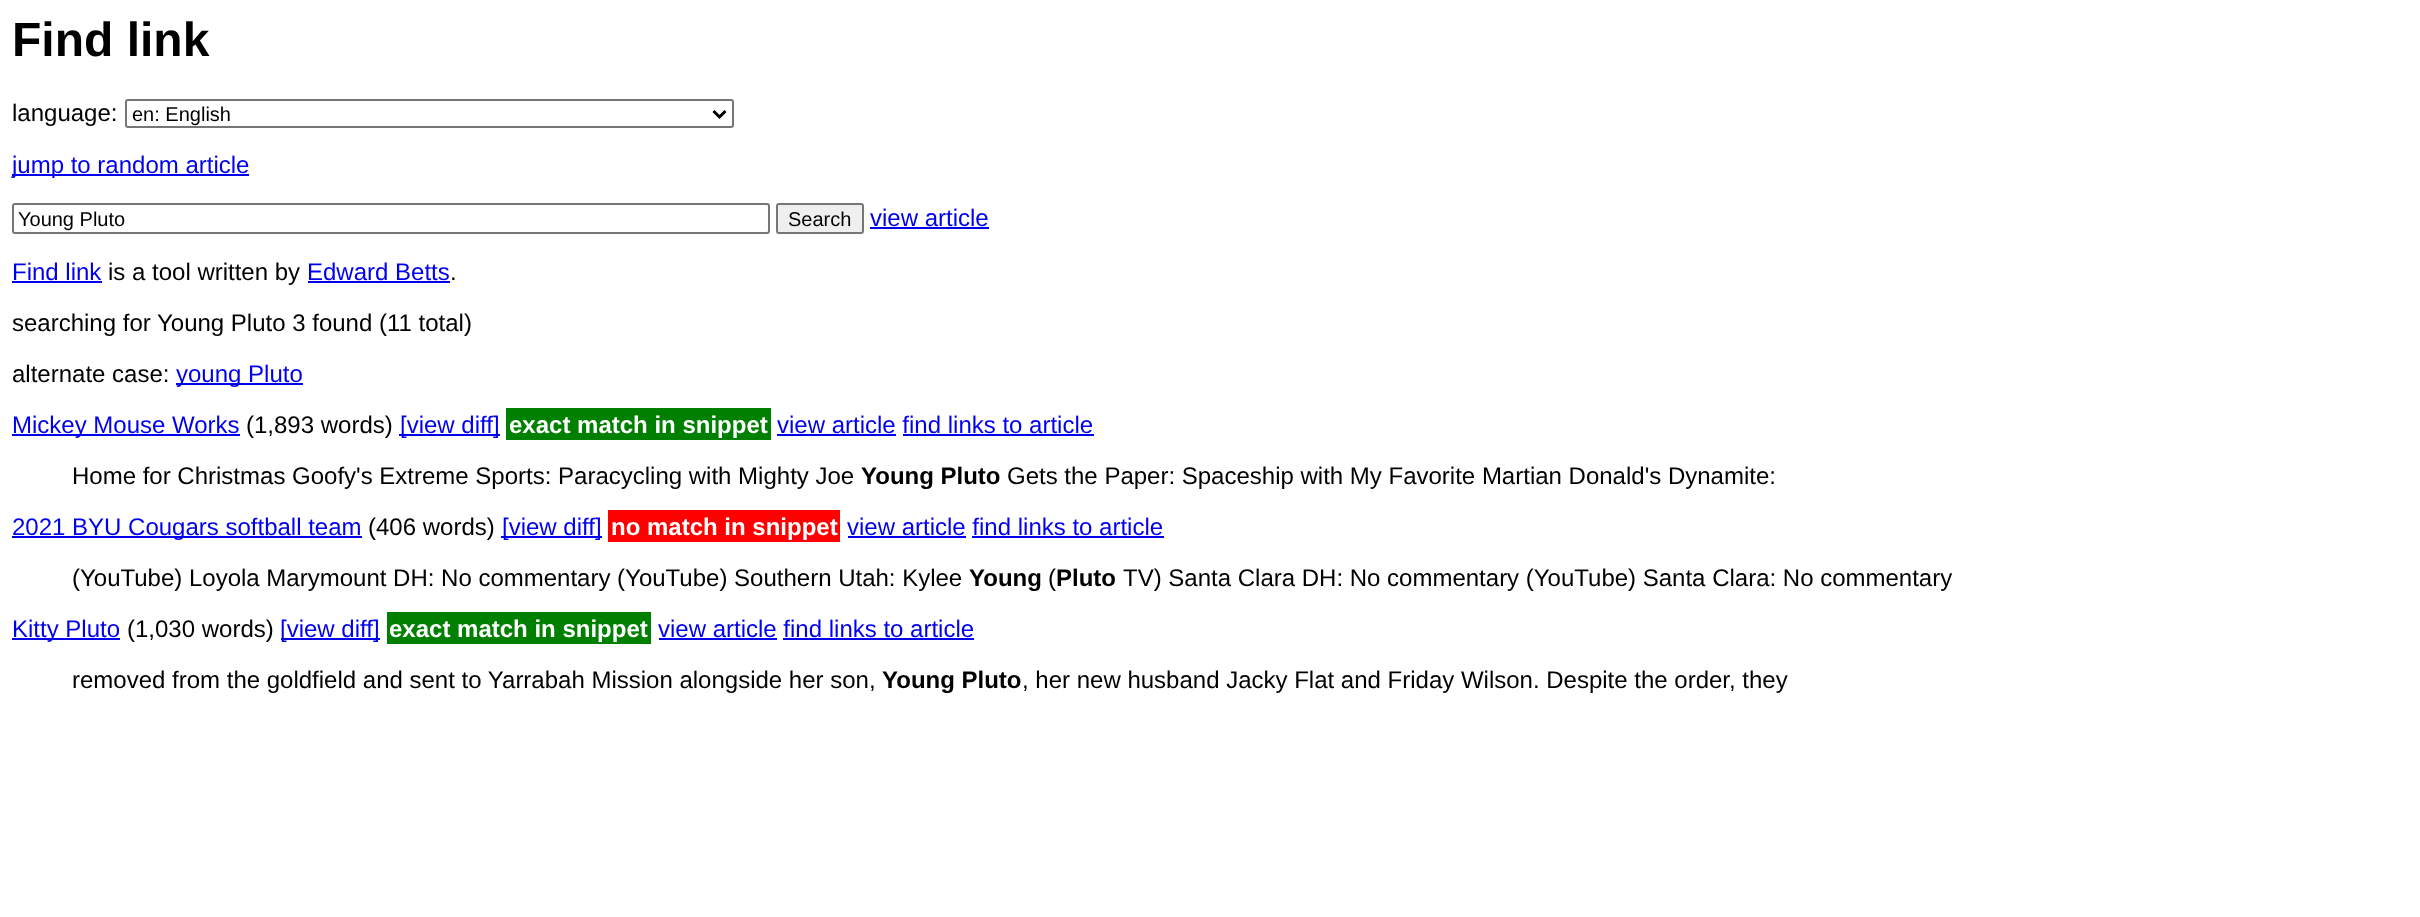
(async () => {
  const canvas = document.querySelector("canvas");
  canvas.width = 2420;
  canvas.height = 917;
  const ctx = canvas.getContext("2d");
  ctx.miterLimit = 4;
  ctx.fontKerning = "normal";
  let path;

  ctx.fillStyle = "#ffffff";
  ctx.fillRect(0, 0, 2420, 917);
  ctx.beginPath();
  ctx.roundRect(126, 100, 607, 27, 2);
  ctx.strokeStyle = "#767676";
  ctx.lineWidth = 2;
  ctx.stroke();
  path = new Path2D("M713.5 111L719.5 117L725.5 111");
  ctx.strokeStyle = "#000000";
  ctx.lineWidth = 3;
  ctx.stroke(path);
  ctx.fillStyle = "#0000ee";
  ctx.fillRect(12, 174, 237, 2);
  ctx.beginPath();
  ctx.roundRect(13, 204, 756, 29, 2);
  ctx.strokeStyle = "#767676";
  ctx.lineWidth = 2;
  ctx.stroke();
  ctx.fillStyle = "#efefef";
  ctx.beginPath();
  ctx.roundRect(777, 204, 86, 29, 2);
  ctx.fill();
  ctx.stroke();
  for (const [x, y, w, h, color] of [
    [870, 227, 119, 2, "#0000ee"],
    [12, 281, 90, 2, "#0000ee"],
    [308, 281, 142, 2, "#0000ee"],
    [176, 383, 127, 2, "#0000ee"],
    [12, 434, 228, 2, "#0000ee"],
    [399, 434, 101, 2, "#0000ee"],
    [506, 408, 265, 32, "#008000"],
    [777, 434, 119, 2, "#0000ee"],
    [903, 434, 191, 2, "#0000ee"],
    [12, 536, 350, 2, "#0000ee"],
    [501, 536, 101, 2, "#0000ee"],
    [608, 510, 232, 32, "#ff0000"],
    [848, 536, 118, 2, "#0000ee"],
    [972, 536, 192, 2, "#0000ee"],
    [12, 638, 108, 2, "#0000ee"],
    [281, 638, 99, 2, "#0000ee"],
    [387, 612, 264, 32, "#008000"],
    [659, 638, 118, 2, "#0000ee"],
    [783, 638, 191, 2, "#0000ee"],
  ]) {
    ctx.fillStyle = color;
    ctx.fillRect(x, y, w, h);
  }
  ctx.font = "bold 48px Liberation Sans";
  ctx.fillStyle = "#000000";
  ctx.fillText("Find link", 12, 56);
  ctx.font = "24px Liberation Sans";
  ctx.fillText("language:", 12, 121);
  ctx.font = "20px Liberation Sans";
  ctx.fillText("en: English", 132, 121);
  ctx.font = "24px Liberation Sans";
  ctx.fillStyle = "#0000ee";
  ctx.fillText("jump to random article", 12, 173);
  ctx.font = "20px Liberation Sans";
  ctx.fillStyle = "#000000";
  ctx.fillText("Young Pluto", 18, 226);
  ctx.fillText("Search", 788, 226);
  ctx.font = "24px Liberation Sans";
  ctx.fillStyle = "#0000ee";
  ctx.fillText("view article", 870, 226);
  ctx.fillText("Find link", 12, 280);
  ctx.fillStyle = "#000000";
  ctx.fillText("is a tool written by", 108, 280);
  ctx.fillStyle = "#0000ee";
  ctx.fillText("Edward Betts", 307, 280);
  ctx.fillStyle = "#000000";
  for (const [text, x, y] of [
    [".", 450, 280],
    ["searching for Young Pluto 3 found (11 total)", 12, 331],
    ["alternate case:", 12, 382],
  ]) {
    ctx.fillText(text, x, y);
  }
  ctx.fillStyle = "#0000ee";
  ctx.fillText("young Pluto", 176, 382);
  ctx.fillText("Mickey Mouse Works", 12, 433);
  ctx.fillStyle = "#000000";
  ctx.fillText("(1,893 words)", 246, 433);
  ctx.fillStyle = "#0000ee";
  ctx.fillText("[view diff]", 400, 433);
  ctx.font = "bold 24px Liberation Sans";
  ctx.fillStyle = "#ffffff";
  ctx.fillText("exact match in snippet", 509, 433);
  ctx.font = "24px Liberation Sans";
  ctx.fillStyle = "#0000ee";
  ctx.fillText("view article find links to article", 777, 433);
  ctx.fillStyle = "#000000";
  ctx.fillText("Home for Christmas Goofy's Extreme Sports: Paracycling with Mighty Joe", 72, 484);
  ctx.font = "bold 24px Liberation Sans";
  ctx.fillText("Young Pluto", 861, 484);
  ctx.font = "24px Liberation Sans";
  ctx.fillText("Gets the Paper: Spaceship with My Favorite Martian Donald's Dynamite:", 1007, 484);
  ctx.fillStyle = "#0000ee";
  ctx.fillText("2021 BYU Cougars softball team", 12, 535);
  ctx.fillStyle = "#000000";
  ctx.fillText("(406 words)", 368, 535);
  ctx.fillStyle = "#0000ee";
  ctx.fillText("[view diff]", 502, 535);
  ctx.font = "bold 24px Liberation Sans";
  ctx.fillStyle = "#ffffff";
  ctx.fillText("no match in snippet", 611, 535);
  ctx.font = "24px Liberation Sans";
  ctx.fillStyle = "#0000ee";
  ctx.fillText("view article find links to article", 847, 535);
  ctx.fillStyle = "#000000";
  ctx.fillText("(YouTube) Loyola Marymount DH: No commentary (YouTube) Southern Utah: Kylee", 72, 586);
  ctx.font = "bold 24px Liberation Sans";
  ctx.fillText("Young", 969, 586);
  ctx.font = "24px Liberation Sans";
  ctx.fillText("(", 1048, 586);
  ctx.font = "bold 24px Liberation Sans";
  ctx.fillText("Pluto", 1056, 586);
  ctx.font = "24px Liberation Sans";
  ctx.fillText("TV) Santa Clara DH: No commentary (YouTube) Santa Clara: No commentary", 1123, 586);
  ctx.fillStyle = "#0000ee";
  ctx.fillText("Kitty Pluto", 12, 637);
  ctx.fillStyle = "#000000";
  ctx.fillText("(1,030 words)", 127, 637);
  ctx.fillStyle = "#0000ee";
  ctx.fillText("[view diff]", 280, 637);
  ctx.font = "bold 24px Liberation Sans";
  ctx.fillStyle = "#ffffff";
  ctx.fillText("exact match in snippet", 389, 637);
  ctx.font = "24px Liberation Sans";
  ctx.fillStyle = "#0000ee";
  ctx.fillText("view article find links to article", 658, 637);
  ctx.fillStyle = "#000000";
  ctx.fillText("removed from the goldfield and sent to Yarrabah Mission alongside her son,", 72, 688);
  ctx.font = "bold 24px Liberation Sans";
  ctx.fillText("Young Pluto", 882, 688);
  ctx.font = "24px Liberation Sans";
  ctx.fillText(", her new husband Jacky Flat and Friday Wilson. Despite the order, they", 1022, 688);
})();
